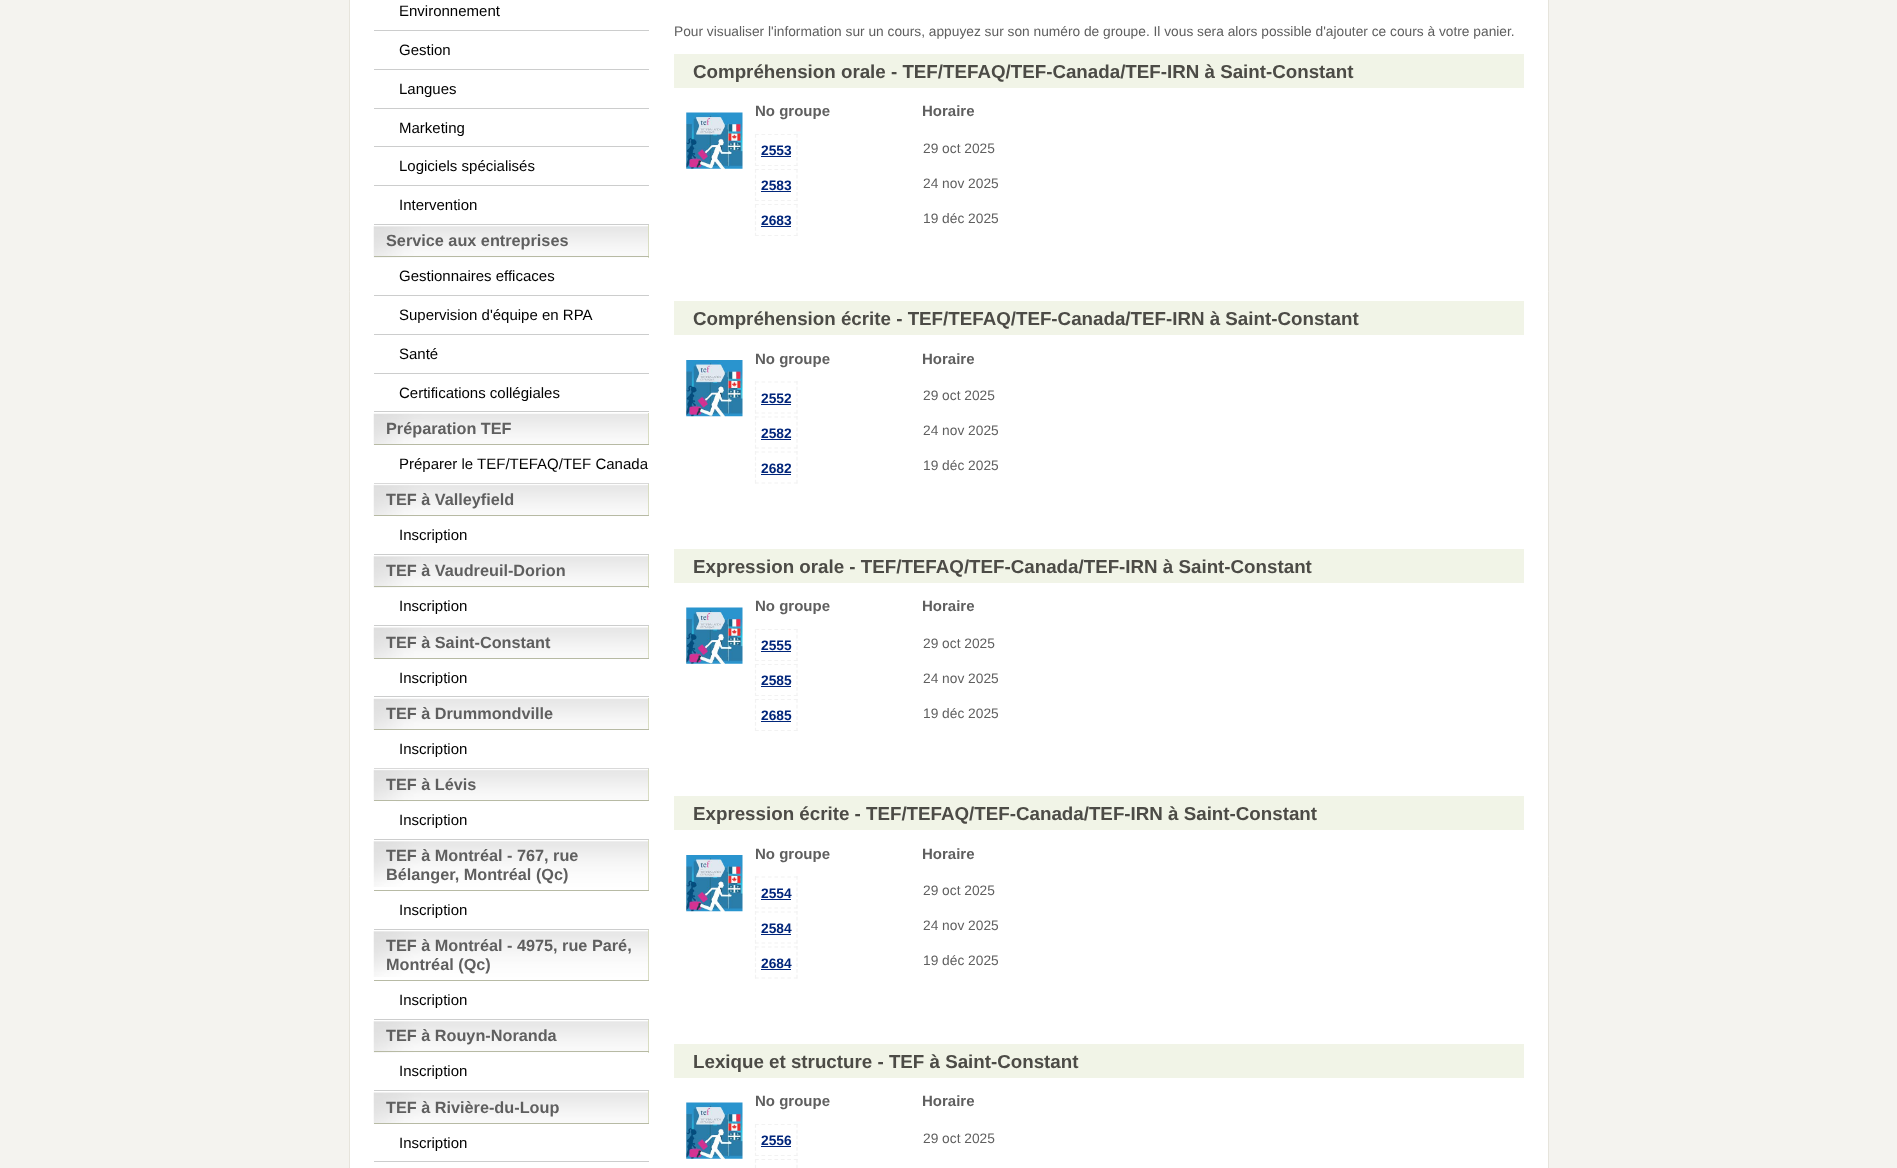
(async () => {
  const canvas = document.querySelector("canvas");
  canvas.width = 1897;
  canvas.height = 1168;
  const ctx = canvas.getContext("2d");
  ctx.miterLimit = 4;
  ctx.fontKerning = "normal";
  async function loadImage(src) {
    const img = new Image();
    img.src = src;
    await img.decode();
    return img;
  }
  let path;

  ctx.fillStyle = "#f4f3ef";
  ctx.fillRect(0, 0, 1897, 1168);
  ctx.fillStyle = "#ffffff";
  ctx.beginPath();
  ctx.rect(349.5, -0.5, 1199, 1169);
  ctx.fill();
  ctx.strokeStyle = "#e6e4dc";
  ctx.stroke();
  for (const [x, y, w, h, color] of [
    [374, 30, 275, 1, "#cccdcd"],
    [374, 69, 275, 1, "#cccdcd"],
    [374, 108, 275, 1, "#cccdcd"],
    [374, 146, 275, 1, "#cccdcd"],
    [374, 185, 275, 1, "#cccdcd"],
    [374, 224, 275, 1, "#cccdcd"],
  ]) {
    ctx.fillStyle = color;
    ctx.fillRect(x, y, w, h);
  }
  ctx.drawImage(await loadImage("img/1.png"), 373, 226, 275, 32);
  for (const [x, y, w, h, color] of [
    [648, 225, 1, 33, "#d8dcc2"],
    [374, 256, 275, 1, "#b7baa4"],
    [374, 295, 275, 1, "#cccdcd"],
    [374, 334, 275, 1, "#cccdcd"],
    [374, 373, 275, 1, "#cccdcd"],
    [374, 411, 275, 1, "#cccdcd"],
  ]) {
    ctx.fillStyle = color;
    ctx.fillRect(x, y, w, h);
  }
  ctx.drawImage(await loadImage("img/2.png"), 373, 413, 275, 32);
  for (const [x, y, w, h, color] of [
    [648, 413, 1, 32, "#d8dcc2"],
    [374, 444, 275, 1, "#b7baa4"],
    [374, 483, 275, 1, "#cccdcd"],
  ]) {
    ctx.fillStyle = color;
    ctx.fillRect(x, y, w, h);
  }
  ctx.drawImage(await loadImage("img/3.png"), 373, 483, 276, 34);
  for (const [x, y, w, h, color] of [
    [648, 484, 1, 32, "#d8dcc2"],
    [374, 515, 275, 1, "#b7baa4"],
    [374, 516, 22, 1, "#ffffff"],
    [374, 554, 275, 1, "#cccdcd"],
  ]) {
    ctx.fillStyle = color;
    ctx.fillRect(x, y, w, h);
  }
  ctx.drawImage(await loadImage("img/4.png"), 373, 556, 275, 32);
  for (const [x, y, w, h, color] of [
    [648, 555, 1, 33, "#d8dcc2"],
    [374, 586, 275, 1, "#b7baa4"],
    [374, 625, 275, 1, "#cccdcd"],
  ]) {
    ctx.fillStyle = color;
    ctx.fillRect(x, y, w, h);
  }
  ctx.drawImage(await loadImage("img/5.png"), 373, 627, 275, 32);
  for (const [x, y, w, h, color] of [
    [648, 626, 1, 33, "#d8dcc2"],
    [374, 658, 275, 1, "#b7baa4"],
    [374, 696, 275, 1, "#cccdcd"],
  ]) {
    ctx.fillStyle = color;
    ctx.fillRect(x, y, w, h);
  }
  ctx.drawImage(await loadImage("img/2.png"), 373, 698, 275, 32);
  for (const [x, y, w, h, color] of [
    [648, 698, 1, 32, "#d8dcc2"],
    [374, 729, 275, 1, "#b7baa4"],
    [374, 768, 275, 1, "#cccdcd"],
  ]) {
    ctx.fillStyle = color;
    ctx.fillRect(x, y, w, h);
  }
  ctx.drawImage(await loadImage("img/3.png"), 373, 768, 276, 34);
  for (const [x, y, w, h, color] of [
    [648, 769, 1, 32, "#d8dcc2"],
    [374, 800, 275, 1, "#b7baa4"],
    [374, 801, 22, 1, "#ffffff"],
    [374, 839, 275, 1, "#cccdcd"],
  ]) {
    ctx.fillStyle = color;
    ctx.fillRect(x, y, w, h);
  }
  ctx.drawImage(await loadImage("img/6.png"), 373, 841, 275, 46);
  for (const [x, y, w, h, color] of [
    [648, 840, 1, 51, "#d8dcc2"],
    [374, 890, 275, 1, "#b7baa4"],
    [374, 929, 275, 1, "#cccdcd"],
  ]) {
    ctx.fillStyle = color;
    ctx.fillRect(x, y, w, h);
  }
  ctx.drawImage(await loadImage("img/6.png"), 373, 931, 275, 46);
  for (const [x, y, w, h, color] of [
    [648, 930, 1, 51, "#d8dcc2"],
    [374, 980, 275, 1, "#b7baa4"],
    [374, 1019, 275, 1, "#cccdcd"],
  ]) {
    ctx.fillStyle = color;
    ctx.fillRect(x, y, w, h);
  }
  ctx.drawImage(await loadImage("img/4.png"), 373, 1021, 275, 32);
  for (const [x, y, w, h, color] of [
    [648, 1020, 1, 33, "#d8dcc2"],
    [374, 1051, 275, 1, "#b7baa4"],
    [374, 1090, 275, 1, "#cccdcd"],
  ]) {
    ctx.fillStyle = color;
    ctx.fillRect(x, y, w, h);
  }
  ctx.drawImage(await loadImage("img/5.png"), 373, 1092, 275, 32);
  for (const [x, y, w, h, color] of [
    [648, 1091, 1, 33, "#d8dcc2"],
    [374, 1123, 275, 1, "#b7baa4"],
    [374, 1161, 275, 1, "#cccdcd"],
    [674, 54, 850, 34, "#f1f4e7"],
  ]) {
    ctx.fillStyle = color;
    ctx.fillRect(x, y, w, h);
  }
  ctx.drawImage(await loadImage("img/7.png"), 686, 112, 57, 57);
  path = new Path2D("M755 134.5H797.5");
  ctx.strokeStyle = "#f2f2f2";
  ctx.lineWidth = 1.2;
  ctx.setLineDash([3.75, 2.71]);
  ctx.stroke(path);
  path = new Path2D("M797 134V166");
  ctx.setLineDash([3.75, 2]);
  ctx.stroke(path);
  path = new Path2D("M755 165.5H797.5");
  ctx.setLineDash([3.75, 2.71]);
  ctx.stroke(path);
  path = new Path2D("M755.5 134V166");
  ctx.setLineDash([3.75, 2]);
  ctx.stroke(path);
  ctx.fillStyle = "#00257a";
  ctx.fillRect(761, 156, 30, 1);
  path = new Path2D("M755 169.5H797.5");
  ctx.setLineDash([3.75, 2.71]);
  ctx.stroke(path);
  path = new Path2D("M797 169V201");
  ctx.setLineDash([3.75, 2]);
  ctx.stroke(path);
  path = new Path2D("M755 200.5H797.5");
  ctx.setLineDash([3.75, 2.71]);
  ctx.stroke(path);
  path = new Path2D("M755.5 169V201");
  ctx.setLineDash([3.75, 2]);
  ctx.stroke(path);
  ctx.fillRect(761, 191, 30, 1);
  path = new Path2D("M755 204.5H797.5");
  ctx.setLineDash([3.75, 2.71]);
  ctx.stroke(path);
  path = new Path2D("M797 204V236");
  ctx.setLineDash([3.75, 2]);
  ctx.stroke(path);
  path = new Path2D("M755 235.5H797.5");
  ctx.setLineDash([3.75, 2.71]);
  ctx.stroke(path);
  path = new Path2D("M755.5 204V236");
  ctx.setLineDash([3.75, 2]);
  ctx.stroke(path);
  ctx.fillRect(761, 226, 30, 1);
  ctx.fillStyle = "#f1f4e7";
  ctx.fillRect(674, 301, 850, 34);
  ctx.drawImage(await loadImage("img/8.png"), 686, 360, 57, 57);
  path = new Path2D("M755 382H797.5");
  ctx.setLineDash([3.75, 2.71]);
  ctx.stroke(path);
  path = new Path2D("M797 381V414");
  ctx.setLineDash([3.75, 2]);
  ctx.stroke(path);
  path = new Path2D("M755 413H797.5");
  ctx.setLineDash([3.75, 2.71]);
  ctx.stroke(path);
  path = new Path2D("M755.5 381V414");
  ctx.setLineDash([3.75, 2]);
  ctx.stroke(path);
  ctx.fillStyle = "#00257a";
  ctx.fillRect(761, 404, 30, 1);
  path = new Path2D("M755 417H797.5");
  ctx.setLineDash([3.75, 2.71]);
  ctx.stroke(path);
  path = new Path2D("M797 416V449");
  ctx.setLineDash([3.75, 2]);
  ctx.stroke(path);
  path = new Path2D("M755 448H797.5");
  ctx.setLineDash([3.75, 2.71]);
  ctx.stroke(path);
  path = new Path2D("M755.5 416V449");
  ctx.setLineDash([3.75, 2]);
  ctx.stroke(path);
  ctx.fillRect(761, 439, 30, 1);
  path = new Path2D("M755 452H797.5");
  ctx.setLineDash([3.75, 2.71]);
  ctx.stroke(path);
  path = new Path2D("M797 451V484");
  ctx.setLineDash([3.75, 2]);
  ctx.stroke(path);
  path = new Path2D("M755 483H797.5");
  ctx.setLineDash([3.75, 2.71]);
  ctx.stroke(path);
  path = new Path2D("M755.5 451V484");
  ctx.setLineDash([3.75, 2]);
  ctx.stroke(path);
  ctx.fillRect(761, 474, 30, 1);
  ctx.fillStyle = "#f1f4e7";
  ctx.fillRect(674, 549, 850, 34);
  ctx.drawImage(await loadImage("img/7.png"), 686, 607, 57, 57);
  path = new Path2D("M755 629.5H797.5");
  ctx.setLineDash([3.75, 2.71]);
  ctx.stroke(path);
  path = new Path2D("M797 629V661");
  ctx.setLineDash([3.75, 2]);
  ctx.stroke(path);
  path = new Path2D("M755 660.5H797.5");
  ctx.setLineDash([3.75, 2.71]);
  ctx.stroke(path);
  path = new Path2D("M755.5 629V661");
  ctx.setLineDash([3.75, 2]);
  ctx.stroke(path);
  ctx.fillStyle = "#00257a";
  ctx.fillRect(761, 651, 30, 1);
  path = new Path2D("M755 664.5H797.5");
  ctx.setLineDash([3.75, 2.71]);
  ctx.stroke(path);
  path = new Path2D("M797 664V696");
  ctx.setLineDash([3.75, 2]);
  ctx.stroke(path);
  path = new Path2D("M755 695.5H797.5");
  ctx.setLineDash([3.75, 2.71]);
  ctx.stroke(path);
  path = new Path2D("M755.5 664V696");
  ctx.setLineDash([3.75, 2]);
  ctx.stroke(path);
  ctx.fillRect(761, 686, 30, 1);
  path = new Path2D("M755 699.5H797.5");
  ctx.setLineDash([3.75, 2.71]);
  ctx.stroke(path);
  path = new Path2D("M797 699V731");
  ctx.setLineDash([3.75, 2]);
  ctx.stroke(path);
  path = new Path2D("M755 730.5H797.5");
  ctx.setLineDash([3.75, 2.71]);
  ctx.stroke(path);
  path = new Path2D("M755.5 699V731");
  ctx.setLineDash([3.75, 2]);
  ctx.stroke(path);
  ctx.fillRect(761, 721, 30, 1);
  ctx.fillStyle = "#f1f4e7";
  ctx.fillRect(674, 796, 850, 34);
  ctx.drawImage(await loadImage("img/8.png"), 686, 855, 57, 57);
  path = new Path2D("M755 877H797.5");
  ctx.setLineDash([3.75, 2.71]);
  ctx.stroke(path);
  path = new Path2D("M797 876V909");
  ctx.setLineDash([3.75, 2]);
  ctx.stroke(path);
  path = new Path2D("M755 908H797.5");
  ctx.setLineDash([3.75, 2.71]);
  ctx.stroke(path);
  path = new Path2D("M755.5 876V909");
  ctx.setLineDash([3.75, 2]);
  ctx.stroke(path);
  ctx.fillStyle = "#00257a";
  ctx.fillRect(761, 899, 30, 1);
  path = new Path2D("M755 912H797.5");
  ctx.setLineDash([3.75, 2.71]);
  ctx.stroke(path);
  path = new Path2D("M797 911V944");
  ctx.setLineDash([3.75, 2]);
  ctx.stroke(path);
  path = new Path2D("M755 943H797.5");
  ctx.setLineDash([3.75, 2.71]);
  ctx.stroke(path);
  path = new Path2D("M755.5 911V944");
  ctx.setLineDash([3.75, 2]);
  ctx.stroke(path);
  ctx.fillRect(761, 934, 30, 1);
  path = new Path2D("M755 947H797.5");
  ctx.setLineDash([3.75, 2.71]);
  ctx.stroke(path);
  path = new Path2D("M797 946V979");
  ctx.setLineDash([3.75, 2]);
  ctx.stroke(path);
  path = new Path2D("M755 978H797.5");
  ctx.setLineDash([3.75, 2.71]);
  ctx.stroke(path);
  path = new Path2D("M755.5 946V979");
  ctx.setLineDash([3.75, 2]);
  ctx.stroke(path);
  ctx.fillRect(761, 969, 30, 1);
  ctx.fillStyle = "#f1f4e7";
  ctx.fillRect(674, 1044, 850, 34);
  ctx.drawImage(await loadImage("img/7.png"), 686, 1102, 57, 57);
  path = new Path2D("M755 1124.5H797.5");
  ctx.setLineDash([3.75, 2.71]);
  ctx.stroke(path);
  path = new Path2D("M797 1124V1156");
  ctx.setLineDash([3.75, 2]);
  ctx.stroke(path);
  path = new Path2D("M755 1155.5H797.5");
  ctx.setLineDash([3.75, 2.71]);
  ctx.stroke(path);
  path = new Path2D("M755.5 1124V1156");
  ctx.setLineDash([3.75, 2]);
  ctx.stroke(path);
  ctx.fillStyle = "#00257a";
  ctx.fillRect(761, 1146, 30, 1);
  path = new Path2D("M755 1159.5H797.5");
  ctx.setLineDash([3.75, 2.71]);
  ctx.stroke(path);
  path = new Path2D("M797 1159V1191M755.5 1159V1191");
  ctx.setLineDash([3.75, 2]);
  ctx.stroke(path);
  ctx.font = "15px Liberation Sans";
  ctx.fillStyle = "#000000";
  for (const [text, x, y] of [
    ["Environnement", 399, 16],
    ["Gestion", 399, 55],
    ["Langues", 399, 94],
    ["Marketing", 399, 133],
    ["Logiciels spécialisés", 399, 171],
    ["Intervention", 399, 210],
  ]) {
    ctx.fillText(text, x, y);
  }
  ctx.font = "bold 16.25px Liberation Sans";
  ctx.fillStyle = "#5f5f5f";
  ctx.fillText("Service aux entreprises", 386, 246);
  ctx.font = "15px Liberation Sans";
  ctx.fillStyle = "#000000";
  for (const [text, x, y] of [
    ["Gestionnaires efficaces", 399, 281],
    ["Supervision d'équipe en RPA", 399, 320],
    ["Santé", 399, 359],
    ["Certifications collégiales", 399, 398],
  ]) {
    ctx.fillText(text, x, y);
  }
  ctx.font = "bold 16.25px Liberation Sans";
  ctx.fillStyle = "#5f5f5f";
  ctx.fillText("Préparation TEF", 386, 434);
  ctx.font = "15px Liberation Sans";
  ctx.fillStyle = "#000000";
  ctx.fillText("Préparer le TEF/TEFAQ/TEF Canada", 399, 469);
  ctx.font = "bold 16.25px Liberation Sans";
  ctx.fillStyle = "#5f5f5f";
  ctx.fillText("TEF à Valleyfield", 386, 505);
  ctx.font = "15px Liberation Sans";
  ctx.fillStyle = "#000000";
  ctx.fillText("Inscription", 399, 540);
  ctx.font = "bold 16.25px Liberation Sans";
  ctx.fillStyle = "#5f5f5f";
  ctx.fillText("TEF à Vaudreuil-Dorion", 386, 576);
  ctx.font = "15px Liberation Sans";
  ctx.fillStyle = "#000000";
  ctx.fillText("Inscription", 399, 611);
  ctx.font = "bold 16.25px Liberation Sans";
  ctx.fillStyle = "#5f5f5f";
  ctx.fillText("TEF à Saint-Constant", 386, 648);
  ctx.font = "15px Liberation Sans";
  ctx.fillStyle = "#000000";
  ctx.fillText("Inscription", 399, 683);
  ctx.font = "bold 16.25px Liberation Sans";
  ctx.fillStyle = "#5f5f5f";
  ctx.fillText("TEF à Drummondville", 386, 719);
  ctx.font = "15px Liberation Sans";
  ctx.fillStyle = "#000000";
  ctx.fillText("Inscription", 399, 754);
  ctx.font = "bold 16.25px Liberation Sans";
  ctx.fillStyle = "#5f5f5f";
  ctx.fillText("TEF à Lévis", 386, 790);
  ctx.font = "15px Liberation Sans";
  ctx.fillStyle = "#000000";
  ctx.fillText("Inscription", 399, 825);
  ctx.font = "bold 16.25px Liberation Sans";
  ctx.fillStyle = "#5f5f5f";
  ctx.fillText("TEF à Montréal - 767, rue", 386, 861);
  ctx.fillText("Bélanger, Montréal (Qc)", 386, 880);
  ctx.font = "15px Liberation Sans";
  ctx.fillStyle = "#000000";
  ctx.fillText("Inscription", 399, 915);
  ctx.font = "bold 16.25px Liberation Sans";
  ctx.fillStyle = "#5f5f5f";
  ctx.fillText("TEF à Montréal - 4975, rue Paré,", 386, 951);
  ctx.fillText("Montréal (Qc)", 386, 970);
  ctx.font = "15px Liberation Sans";
  ctx.fillStyle = "#000000";
  ctx.fillText("Inscription", 399, 1005);
  ctx.font = "bold 16.25px Liberation Sans";
  ctx.fillStyle = "#5f5f5f";
  ctx.fillText("TEF à Rouyn-Noranda", 386, 1041);
  ctx.font = "15px Liberation Sans";
  ctx.fillStyle = "#000000";
  ctx.fillText("Inscription", 399, 1076);
  ctx.font = "bold 16.25px Liberation Sans";
  ctx.fillStyle = "#5f5f5f";
  ctx.fillText("TEF à Rivière-du-Loup", 386, 1113);
  ctx.font = "15px Liberation Sans";
  ctx.fillStyle = "#000000";
  ctx.fillText("Inscription", 399, 1148);
  ctx.font = "13.75px Liberation Sans";
  ctx.fillStyle = "#5f5f5f";
  ctx.fillText("Pour visualiser l'information sur un cours, appuyez sur son numéro de groupe. Il vous sera alors possible d'ajouter ce cours à votre panier.", 674, 36);
  ctx.font = "bold 18.75px Liberation Sans";
  ctx.fillStyle = "#4c4b46";
  ctx.fillText("Compréhension orale - TEF/TEFAQ/TEF-Canada/TEF-IRN à Saint-Constant", 693, 78);
  ctx.font = "bold 15px Liberation Sans";
  ctx.fillStyle = "#5f5f5f";
  ctx.fillText("No groupe", 755, 116);
  ctx.fillText("Horaire", 922, 116);
  ctx.font = "bold 13.75px Liberation Sans";
  ctx.fillStyle = "#00257a";
  ctx.fillText("2553", 761, 155);
  ctx.font = "13.75px Liberation Sans";
  ctx.fillStyle = "#5f5f5f";
  ctx.fillText("29 oct 2025", 923, 153);
  ctx.font = "bold 13.75px Liberation Sans";
  ctx.fillStyle = "#00257a";
  ctx.fillText("2583", 761, 190);
  ctx.font = "13.75px Liberation Sans";
  ctx.fillStyle = "#5f5f5f";
  ctx.fillText("24 nov 2025", 923, 188);
  ctx.font = "bold 13.75px Liberation Sans";
  ctx.fillStyle = "#00257a";
  ctx.fillText("2683", 761, 225);
  ctx.font = "13.75px Liberation Sans";
  ctx.fillStyle = "#5f5f5f";
  ctx.fillText("19 déc 2025", 923, 223);
  ctx.font = "bold 18.75px Liberation Sans";
  ctx.fillStyle = "#4c4b46";
  ctx.fillText("Compréhension écrite - TEF/TEFAQ/TEF-Canada/TEF-IRN à Saint-Constant", 693, 325);
  ctx.font = "bold 15px Liberation Sans";
  ctx.fillStyle = "#5f5f5f";
  ctx.fillText("No groupe", 755, 364);
  ctx.fillText("Horaire", 922, 364);
  ctx.font = "bold 13.75px Liberation Sans";
  ctx.fillStyle = "#00257a";
  ctx.fillText("2552", 761, 403);
  ctx.font = "13.75px Liberation Sans";
  ctx.fillStyle = "#5f5f5f";
  ctx.fillText("29 oct 2025", 923, 400);
  ctx.font = "bold 13.75px Liberation Sans";
  ctx.fillStyle = "#00257a";
  ctx.fillText("2582", 761, 438);
  ctx.font = "13.75px Liberation Sans";
  ctx.fillStyle = "#5f5f5f";
  ctx.fillText("24 nov 2025", 923, 435);
  ctx.font = "bold 13.75px Liberation Sans";
  ctx.fillStyle = "#00257a";
  ctx.fillText("2682", 761, 473);
  ctx.font = "13.75px Liberation Sans";
  ctx.fillStyle = "#5f5f5f";
  ctx.fillText("19 déc 2025", 923, 470);
  ctx.font = "bold 18.75px Liberation Sans";
  ctx.fillStyle = "#4c4b46";
  ctx.fillText("Expression orale - TEF/TEFAQ/TEF-Canada/TEF-IRN à Saint-Constant", 693, 573);
  ctx.font = "bold 15px Liberation Sans";
  ctx.fillStyle = "#5f5f5f";
  ctx.fillText("No groupe", 755, 611);
  ctx.fillText("Horaire", 922, 611);
  ctx.font = "bold 13.75px Liberation Sans";
  ctx.fillStyle = "#00257a";
  ctx.fillText("2555", 761, 650);
  ctx.font = "13.75px Liberation Sans";
  ctx.fillStyle = "#5f5f5f";
  ctx.fillText("29 oct 2025", 923, 648);
  ctx.font = "bold 13.75px Liberation Sans";
  ctx.fillStyle = "#00257a";
  ctx.fillText("2585", 761, 685);
  ctx.font = "13.75px Liberation Sans";
  ctx.fillStyle = "#5f5f5f";
  ctx.fillText("24 nov 2025", 923, 683);
  ctx.font = "bold 13.75px Liberation Sans";
  ctx.fillStyle = "#00257a";
  ctx.fillText("2685", 761, 720);
  ctx.font = "13.75px Liberation Sans";
  ctx.fillStyle = "#5f5f5f";
  ctx.fillText("19 déc 2025", 923, 718);
  ctx.font = "bold 18.75px Liberation Sans";
  ctx.fillStyle = "#4c4b46";
  ctx.fillText("Expression écrite - TEF/TEFAQ/TEF-Canada/TEF-IRN à Saint-Constant", 693, 820);
  ctx.font = "bold 15px Liberation Sans";
  ctx.fillStyle = "#5f5f5f";
  ctx.fillText("No groupe", 755, 859);
  ctx.fillText("Horaire", 922, 859);
  ctx.font = "bold 13.75px Liberation Sans";
  ctx.fillStyle = "#00257a";
  ctx.fillText("2554", 761, 898);
  ctx.font = "13.75px Liberation Sans";
  ctx.fillStyle = "#5f5f5f";
  ctx.fillText("29 oct 2025", 923, 895);
  ctx.font = "bold 13.75px Liberation Sans";
  ctx.fillStyle = "#00257a";
  ctx.fillText("2584", 761, 933);
  ctx.font = "13.75px Liberation Sans";
  ctx.fillStyle = "#5f5f5f";
  ctx.fillText("24 nov 2025", 923, 930);
  ctx.font = "bold 13.75px Liberation Sans";
  ctx.fillStyle = "#00257a";
  ctx.fillText("2684", 761, 968);
  ctx.font = "13.75px Liberation Sans";
  ctx.fillStyle = "#5f5f5f";
  ctx.fillText("19 déc 2025", 923, 965);
  ctx.font = "bold 18.75px Liberation Sans";
  ctx.fillStyle = "#4c4b46";
  ctx.fillText("Lexique et structure - TEF à Saint-Constant", 693, 1068);
  ctx.font = "bold 15px Liberation Sans";
  ctx.fillStyle = "#5f5f5f";
  ctx.fillText("No groupe", 755, 1106);
  ctx.fillText("Horaire", 922, 1106);
  ctx.font = "bold 13.75px Liberation Sans";
  ctx.fillStyle = "#00257a";
  ctx.fillText("2556", 761, 1145);
  ctx.font = "13.75px Liberation Sans";
  ctx.fillStyle = "#5f5f5f";
  ctx.fillText("29 oct 2025", 923, 1143);
})();
